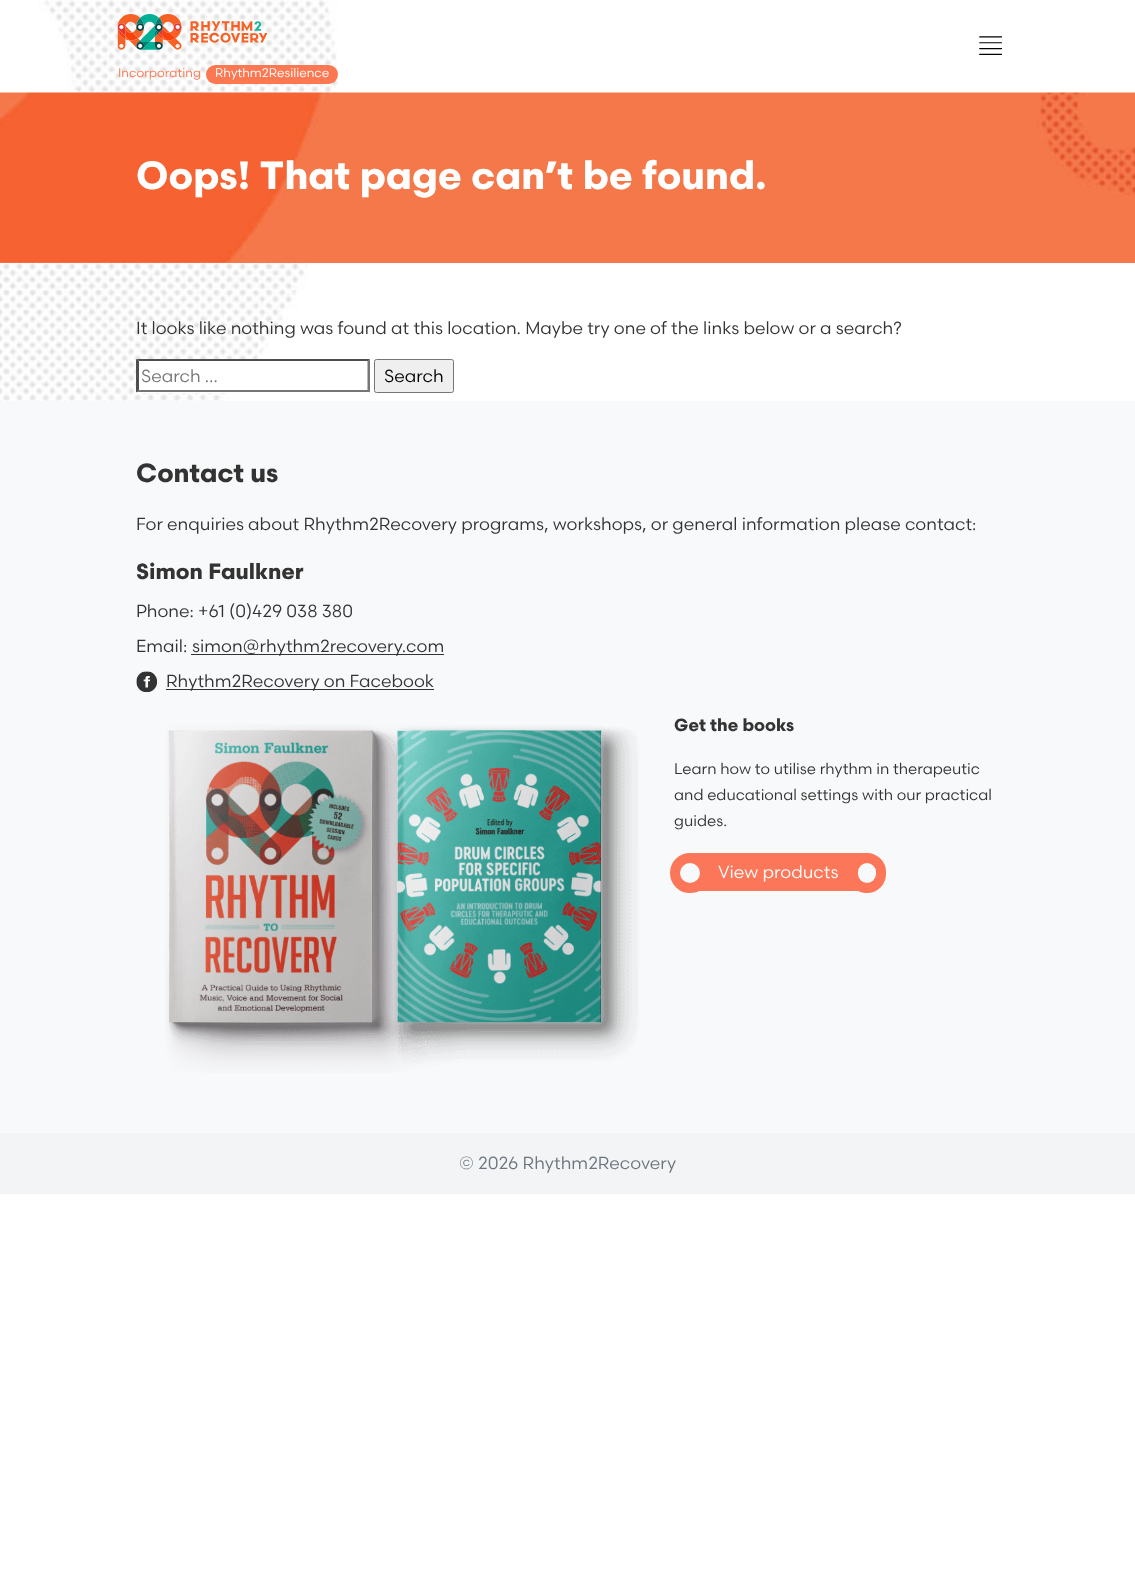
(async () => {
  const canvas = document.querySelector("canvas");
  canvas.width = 1135;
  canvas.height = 1593;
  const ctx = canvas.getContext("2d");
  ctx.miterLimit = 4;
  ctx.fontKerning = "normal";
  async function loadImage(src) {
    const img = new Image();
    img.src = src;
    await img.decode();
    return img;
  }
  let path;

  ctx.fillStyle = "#ffffff";
  ctx.fillRect(0, 0, 1135, 1593);
  ctx.drawImage(await loadImage("img/1.png"), 0, 0, 338, 401);
  ctx.drawImage(await loadImage("img/2.png"), 979, 36, 23, 19);
  ctx.drawImage(await loadImage("img/3.png"), 117, 14, 151, 36);
  ctx.fillStyle = "#fc7852";
  ctx.beginPath();
  ctx.roundRect(206, 65, 132, 19, 9.5);
  ctx.fill();
  ctx.fillRect(0, 262, 1135, 1);
  ctx.drawImage(await loadImage("img/4.png"), 0, 92, 1135, 171);
  ctx.fillStyle = "#ffffff";
  ctx.fillRect(136, 359, 123, 34);
  ctx.fillStyle = "#4f4f4f";
  path = new Path2D("M136 359H370L368 361H139Z");
  ctx.fill(path);
  ctx.fillStyle = "#767676";
  path = new Path2D("M370 359V392.5L367.5 390V361Z");
  ctx.fill(path);
  path = new Path2D("M370 392H136L139 390H368Z");
  ctx.fill(path);
  ctx.fillStyle = "#4f4f4f";
  path = new Path2D("M136 392.5V359L139 361V390Z");
  ctx.fill(path);
  ctx.fillStyle = "#efefef";
  ctx.beginPath();
  ctx.roundRect(374.5, 359.5, 79, 33, 2);
  ctx.fill();
  ctx.strokeStyle = "#767676";
  ctx.stroke();
  ctx.fillStyle = "#f8f9fa";
  ctx.fillRect(0, 401, 1135, 732);
  ctx.fillStyle = "#333333";
  ctx.fillRect(191, 654, 253, 1);
  ctx.drawImage(await loadImage("img/5.png"), 136, 671, 22, 22);
  ctx.fillRect(166, 689, 268, 1);
  ctx.drawImage(await loadImage("img/6.png"), 165, 724, 474, 349);
  ctx.fillStyle = "#fc7759";
  ctx.beginPath();
  ctx.roundRect(675, 853, 208, 38, 19);
  ctx.fill();
  ctx.beginPath();
  ctx.arc(690, 873, 15, 0, Math.PI * 2);
  ctx.strokeStyle = "#fc7759";
  ctx.lineWidth = 10;
  ctx.stroke();
  ctx.fillStyle = "#f8f9fa";
  ctx.beginPath();
  ctx.arc(690, 873, 10, 0, Math.PI * 2);
  ctx.fill();
  ctx.beginPath();
  ctx.roundRect(853, 858, 28, 30, 14);
  ctx.stroke();
  ctx.beginPath();
  ctx.roundRect(858, 863, 18, 20, 9);
  ctx.fill();
  ctx.fillStyle = "#f2f4f6";
  ctx.fillRect(0, 1133, 1135, 61);
  ctx.font = "12.5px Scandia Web";
  ctx.fillStyle = "#fc7852";
  ctx.fillText("Incorporating", 118, 77);
  ctx.fillStyle = "#ffffff";
  ctx.fillText("Rhythm2Resilience", 215, 77);
  ctx.font = "bold 39.4px Scandia Web";
  ctx.fillText("Oops! That page can’t be found.", 136, 189);
  ctx.font = "17.5px Scandia Web";
  ctx.fillStyle = "#333333";
  ctx.fillText("It looks like nothing was found at this location. Maybe try one of the links below or a search?", 136, 334);
  ctx.fillStyle = "#757575";
  ctx.fillText("Search …", 141, 382);
  ctx.fillStyle = "#000000";
  ctx.fillText("Search", 384, 382);
  ctx.font = "bold 26.25px Scandia Web";
  ctx.fillStyle = "#333333";
  ctx.fillText("Contact us", 136, 482);
  ctx.font = "17.5px Scandia Web";
  ctx.fillText("For enquiries about Rhythm2Recovery programs, workshops, or general information please contact:", 136, 530);
  ctx.font = "bold 22px Scandia Web";
  ctx.fillText("Simon Faulkner", 136, 579);
  ctx.font = "17.5px Scandia Web";
  for (const [text, x, y] of [
    ["Phone: +61 (0)429 038 380", 136, 617],
    ["Email:", 136, 652],
    ["simon@rhythm2recovery.com", 192, 652],
    ["Rhythm2Recovery on Facebook", 166, 687],
  ]) {
    ctx.fillText(text, x, y);
  }
  ctx.font = "bold 17.5px Scandia Web";
  ctx.fillText("Get the books", 674, 731);
  ctx.font = "15.3px Scandia Web";
  for (const [text, x, y] of [
    ["Learn how to utilise rhythm in therapeutic", 674, 774],
    ["and educational settings with our practical", 674, 800],
    ["guides.", 674, 826],
  ]) {
    ctx.fillText(text, x, y);
  }
  ctx.font = "17.5px Scandia Web";
  ctx.fillStyle = "#ffffff";
  ctx.fillText("View products", 718, 878);
  ctx.fillStyle = "#6c757d";
  ctx.fillText("© 2026 Rhythm2Recovery", 459, 1169);
})();
